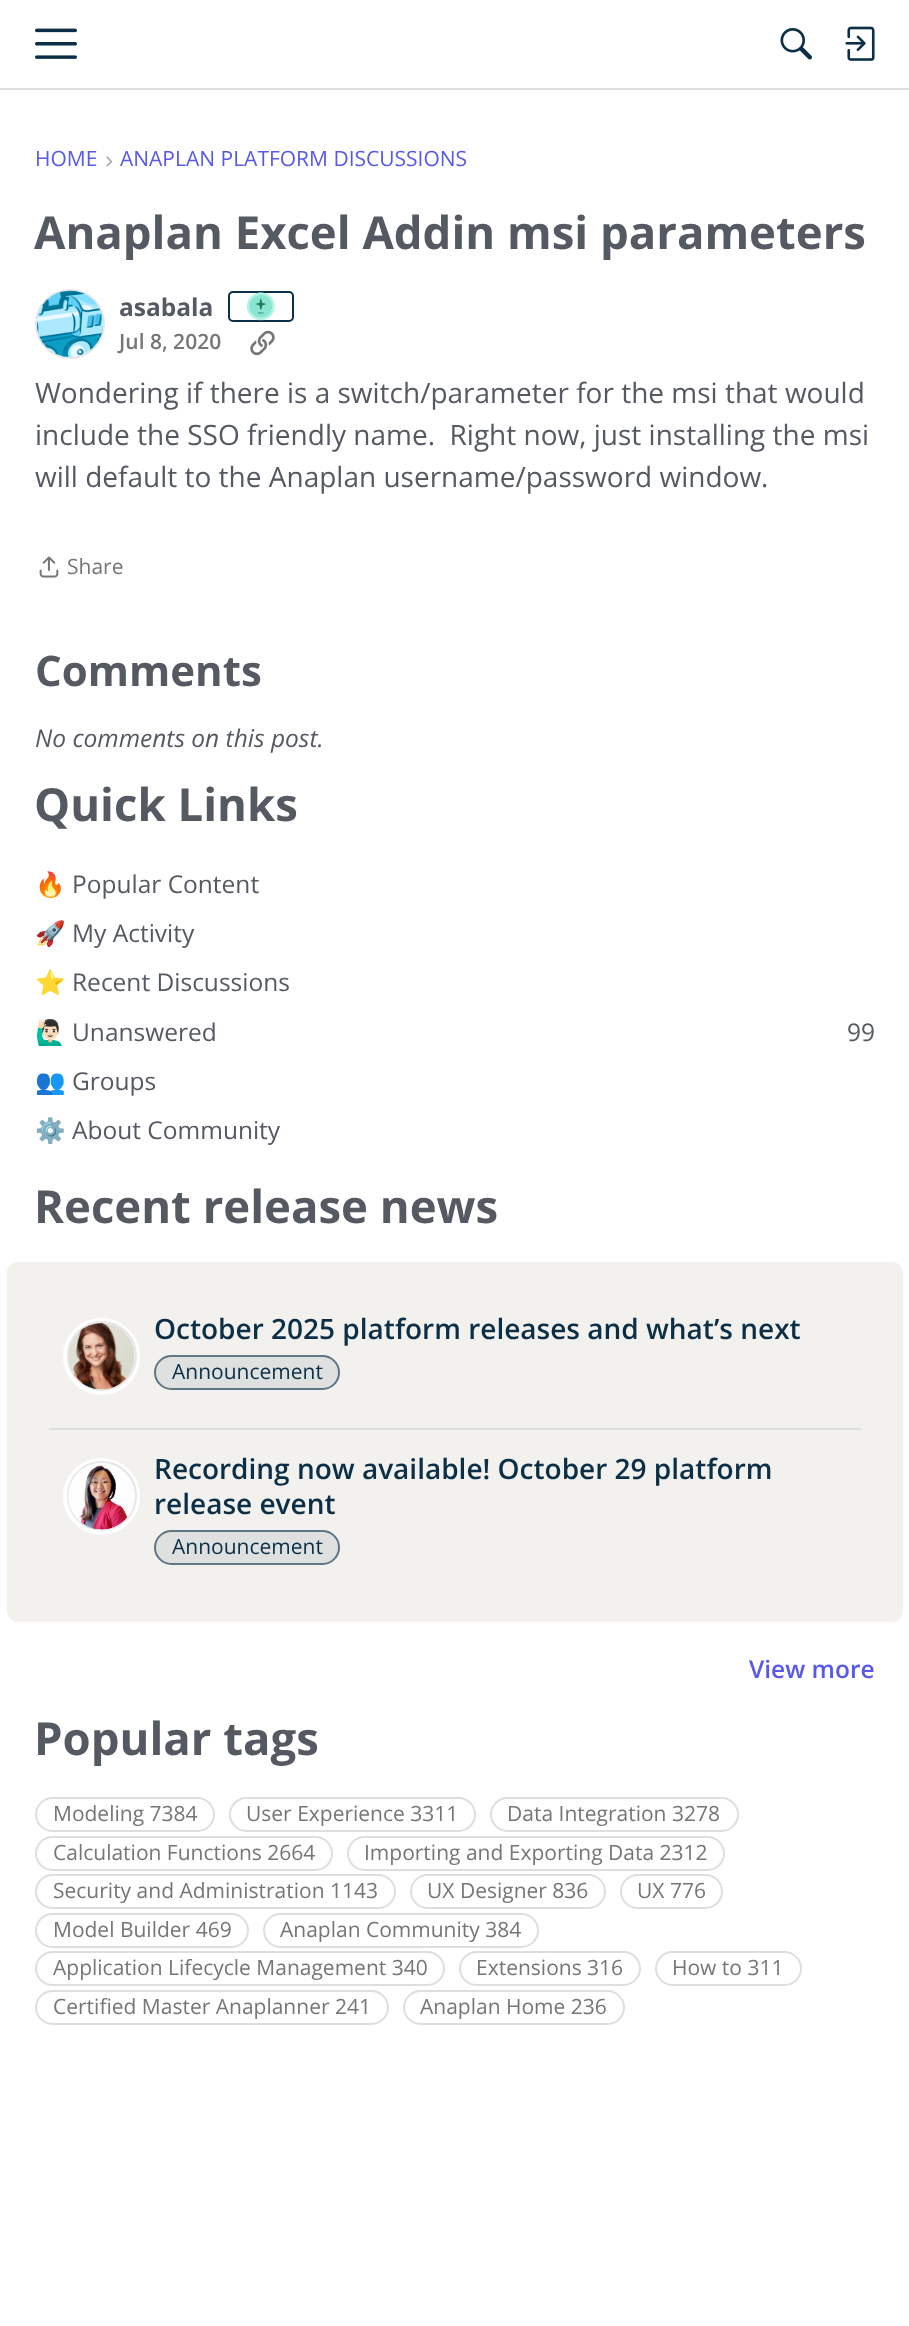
(async () => {
  const canvas = document.querySelector("canvas");
  canvas.width = 909;
  canvas.height = 2326;
  const ctx = canvas.getContext("2d");
  ctx.miterLimit = 4;
  ctx.fontKerning = "normal";
  async function loadImage(src) {
    const img = new Image();
    img.src = src;
    await img.decode();
    return img;
  }

  ctx.fillStyle = "#ffffff";
  ctx.fillRect(0, 0, 909, 2326);
  ctx.fillStyle = "#dddee0";
  ctx.fillRect(0, 88, 909, 2);
  ctx.drawImage(await loadImage("img/1.png"), 35, 28, 42, 31);
  ctx.drawImage(await loadImage("img/2.png"), 780, 28, 32, 32);
  ctx.drawImage(await loadImage("img/3.png"), 845, 26, 30, 35);
  ctx.beginPath();
  ctx.arc(70, 324, 34, 0, Math.PI * 2);
  ctx.strokeStyle = "#e6e6e8";
  ctx.lineWidth = 2;
  ctx.stroke();
  ctx.drawImage(await loadImage("img/4.png"), 36, 290, 67, 67);
  ctx.beginPath();
  ctx.roundRect(229, 292, 64, 29, 4);
  ctx.strokeStyle = "#0a2f46";
  ctx.stroke();
  ctx.drawImage(await loadImage("img/5.png"), 246, 292, 29, 29);
  ctx.drawImage(await loadImage("img/6.png"), 250, 330, 25, 26);
  ctx.drawImage(await loadImage("img/7.png"), 39, 556, 20, 22);
  ctx.fillStyle = "#f2f1ee";
  ctx.beginPath();
  ctx.roundRect(7, 1262, 896, 360, 11);
  ctx.fill();
  ctx.fillStyle = "#ffffff";
  ctx.beginPath();
  ctx.arc(101.5, 1356.5, 36.5, 0, Math.PI * 2);
  ctx.fill();
  ctx.strokeStyle = "#ffffff";
  ctx.lineWidth = 4;
  ctx.stroke();
  ctx.beginPath();
  ctx.arc(102, 1356, 34, 0, Math.PI * 2);
  ctx.strokeStyle = "#e6e6e8";
  ctx.lineWidth = 2;
  ctx.stroke();
  ctx.drawImage(await loadImage("img/8.png"), 68, 1323, 67, 67);
  ctx.fillStyle = "#dfe1e1";
  ctx.beginPath();
  ctx.roundRect(154, 1355, 186, 35, 17.5);
  ctx.fill();
  ctx.beginPath();
  ctx.roundRect(155, 1356, 184, 33, 16.5);
  ctx.strokeStyle = "rgba(10, 47, 70, 0.6)";
  ctx.stroke();
  ctx.fillStyle = "#dddee0";
  ctx.fillRect(49, 1428, 812, 2);
  ctx.fillStyle = "#ffffff";
  ctx.beginPath();
  ctx.arc(101.5, 1496.5, 36.5, 0, Math.PI * 2);
  ctx.fill();
  ctx.strokeStyle = "#ffffff";
  ctx.lineWidth = 4;
  ctx.stroke();
  ctx.beginPath();
  ctx.arc(102, 1496, 34, 0, Math.PI * 2);
  ctx.strokeStyle = "#e6e6e8";
  ctx.lineWidth = 2;
  ctx.stroke();
  ctx.drawImage(await loadImage("img/9.png"), 68, 1463, 65, 67);
  ctx.fillStyle = "#dfe1e1";
  ctx.beginPath();
  ctx.roundRect(154, 1530, 186, 35, 17.5);
  ctx.fill();
  ctx.beginPath();
  ctx.roundRect(155, 1531, 184, 33, 16.5);
  ctx.strokeStyle = "rgba(10, 47, 70, 0.6)";
  ctx.stroke();
  ctx.beginPath();
  ctx.roundRect(36, 1798, 178, 33, 16.5);
  ctx.strokeStyle = "#dddee0";
  ctx.stroke();
  ctx.beginPath();
  ctx.roundRect(230, 1798, 245, 33, 16.5);
  ctx.stroke();
  ctx.beginPath();
  ctx.roundRect(491, 1798, 247, 33, 16.5);
  ctx.stroke();
  ctx.beginPath();
  ctx.roundRect(36, 1837, 296, 33, 16.5);
  ctx.stroke();
  ctx.beginPath();
  ctx.roundRect(348, 1837, 376, 33, 16.5);
  ctx.stroke();
  ctx.beginPath();
  ctx.roundRect(36, 1875, 359, 33, 16.5);
  ctx.stroke();
  ctx.beginPath();
  ctx.roundRect(411, 1875, 194, 33, 16.5);
  ctx.stroke();
  ctx.beginPath();
  ctx.roundRect(621, 1875, 101, 33, 16.5);
  ctx.stroke();
  ctx.beginPath();
  ctx.roundRect(36, 1914, 212, 33, 16.5);
  ctx.stroke();
  ctx.beginPath();
  ctx.roundRect(264, 1914, 274, 33, 16.5);
  ctx.stroke();
  ctx.beginPath();
  ctx.roundRect(36, 1952, 408, 33, 16.5);
  ctx.stroke();
  ctx.beginPath();
  ctx.roundRect(460, 1952, 180, 33, 16.5);
  ctx.stroke();
  ctx.beginPath();
  ctx.roundRect(656, 1952, 145, 33, 16.5);
  ctx.stroke();
  ctx.beginPath();
  ctx.roundRect(36, 1991, 352, 33, 16.5);
  ctx.stroke();
  ctx.beginPath();
  ctx.roundRect(404, 1991, 220, 33, 16.5);
  ctx.stroke();
  ctx.font = "21px Open Sans";
  ctx.fillStyle = "#5858e9";
  ctx.fillText("HOME", 35, 166);
  ctx.font = "24.5px Liberation Sans";
  ctx.fillStyle = "#aaadb1";
  ctx.fillText("›", 105, 168);
  ctx.font = "21px Open Sans";
  ctx.fillStyle = "#5858e9";
  ctx.fillText("ANAPLAN PLATFORM DISCUSSIONS", 120, 166);
  ctx.font = "bold 45.5px Open Sans";
  ctx.fillStyle = "#555a62";
  ctx.fillText("Anaplan Excel Addin msi parameters", 34, 249);
  ctx.font = "bold 24.5px Open Sans";
  ctx.fillText("asabala", 119, 316);
  ctx.font = "600 21px Open Sans";
  ctx.fillStyle = "#767676";
  ctx.fillText("Jul 8, 2020", 119, 349);
  ctx.font = "28px Open Sans";
  ctx.fillStyle = "#555a62";
  for (const [text, x, y] of [
    ["Wondering if there is a switch/parameter for the msi that would", 35, 403],
    ["include the SSO friendly name.  Right now, just installing the msi", 35, 445],
    ["will default to the Anaplan username/password window.", 35, 487],
  ]) {
    ctx.fillText(text, x, y);
  }
  ctx.font = "21px Open Sans";
  ctx.fillStyle = "#767676";
  ctx.fillText("Share", 67, 574);
  ctx.font = "bold 42px Open Sans";
  ctx.fillStyle = "#555a62";
  ctx.fillText("Comments", 35, 686);
  ctx.font = "italic 24.5px Open Sans";
  ctx.fillText("No comments on this post.", 35, 747);
  ctx.font = "bold 45.5px Open Sans";
  ctx.fillText("Quick Links", 34, 821);
  ctx.font = "24.5px Noto Color Emoji";
  ctx.fillText("🔥", 35, 893);
  ctx.font = "24.5px Open Sans";
  ctx.fillText("Popular Content", 72, 893);
  ctx.font = "24.5px Noto Color Emoji";
  ctx.fillText("🚀", 35, 942);
  ctx.font = "24.5px Open Sans";
  ctx.fillText("My Activity", 72, 942);
  ctx.font = "24.5px Noto Color Emoji";
  ctx.fillText("⭐️", 35, 991);
  ctx.font = "24.5px Open Sans";
  ctx.fillText("Recent Discussions", 72, 991);
  ctx.font = "24.5px Noto Color Emoji";
  ctx.fillText("🙋🏻‍♂️", 35, 1041);
  ctx.font = "24.5px Open Sans";
  ctx.fillText("Unanswered", 72, 1041);
  ctx.fillText("99", 847, 1041);
  ctx.font = "24.5px Noto Color Emoji";
  ctx.fillText("👥", 35, 1090);
  ctx.font = "24.5px Open Sans";
  ctx.fillText("Groups", 72, 1090);
  ctx.font = "24.5px Noto Color Emoji";
  ctx.fillText("⚙️", 35, 1139);
  ctx.font = "24.5px Open Sans";
  ctx.fillText("About Community", 72, 1139);
  ctx.font = "bold 45.5px Open Sans";
  ctx.fillText("Recent release news", 34, 1223);
  ctx.font = "600 28px Open Sans";
  ctx.fillStyle = "#0a2f46";
  ctx.fillText("October 2025 platform releases and what’s next", 154, 1339);
  ctx.font = "21px Open Sans";
  ctx.fillText("Announcement", 172, 1379);
  ctx.font = "600 28px Open Sans";
  ctx.fillText("Recording now available! October 29 platform", 154, 1479);
  ctx.fillText("release event", 154, 1514);
  ctx.font = "21px Open Sans";
  ctx.fillText("Announcement", 172, 1554);
  ctx.font = "600 24.5px Open Sans";
  ctx.fillStyle = "#5858e9";
  ctx.fillText("View more", 749, 1678);
  ctx.font = "bold 45.5px Open Sans";
  ctx.fillStyle = "#555a62";
  ctx.fillText("Popular tags", 34, 1755);
  ctx.font = "21px Open Sans";
  ctx.fillStyle = "#767676";
  for (const [text, x, y] of [
    ["Modeling 7384", 53, 1821],
    ["User Experience 3311", 246, 1821],
    ["Data Integration 3278", 507, 1821],
    ["Calculation Functions 2664", 53, 1860],
    ["Importing and Exporting Data 2312", 364, 1860],
    ["Security and Administration 1143", 53, 1898],
    ["UX Designer 836", 427, 1898],
    ["UX 776", 637, 1898],
    ["Model Builder 469", 53, 1937],
    ["Anaplan Community 384", 280, 1937],
    ["Application Lifecycle Management 340", 53, 1975],
    ["Extensions 316", 476, 1975],
    ["How to 311", 672, 1975],
    ["Certified Master Anaplanner 241", 53, 2014],
    ["Anaplan Home 236", 420, 2014],
  ]) {
    ctx.fillText(text, x, y);
  }
})();
